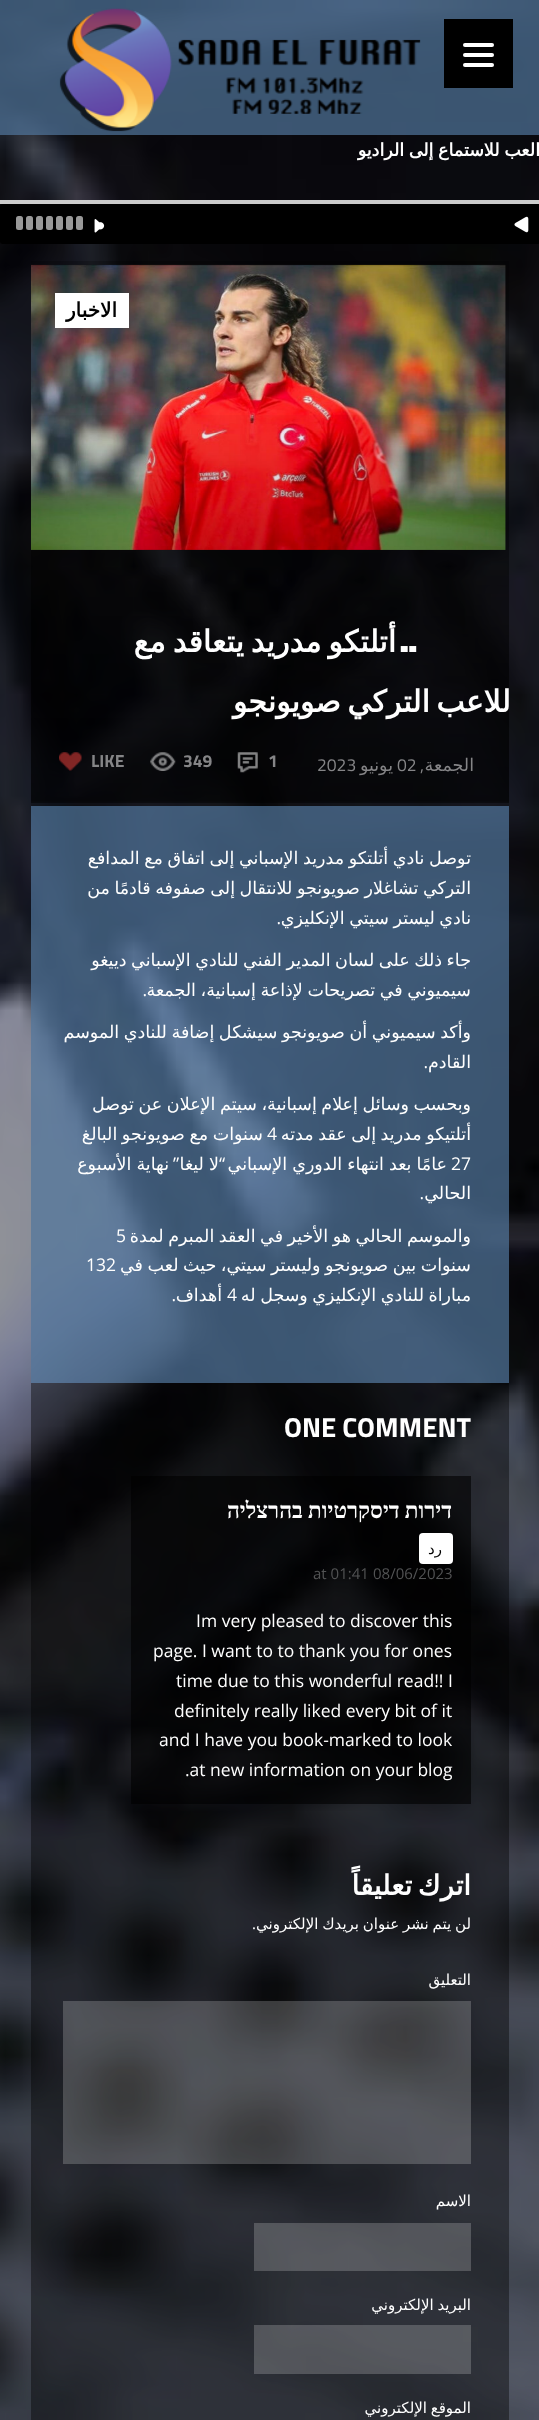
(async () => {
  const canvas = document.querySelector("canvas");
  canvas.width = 539;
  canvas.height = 2420;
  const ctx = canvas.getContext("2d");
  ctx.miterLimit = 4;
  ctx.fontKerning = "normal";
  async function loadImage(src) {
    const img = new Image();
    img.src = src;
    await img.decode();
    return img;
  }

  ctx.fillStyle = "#ffffff";
  ctx.fillRect(0, 0, 539, 2420);
  ctx.drawImage(await loadImage("img/1.png"), 0, 0, 539, 2420);
  ctx.fillStyle = "rgba(81, 118, 156, 0.7)";
  ctx.fillRect(0, 0, 539, 135);
  ctx.drawImage(await loadImage("img/2.png"), 59, 8, 362, 124);
  ctx.fillStyle = "#000000";
  ctx.fillRect(444, 19, 69, 69);
  ctx.fillStyle = "#ffffff";
  ctx.beginPath();
  ctx.roundRect(463, 53, 31, 4, 2);
  ctx.fill();
  ctx.beginPath();
  ctx.roundRect(463, 43, 31, 4, 2);
  ctx.fill();
  ctx.beginPath();
  ctx.roundRect(463, 63, 31, 4, 2);
  ctx.fill();
  ctx.fillStyle = "#000000";
  ctx.beginPath();
  ctx.roundRect(0, 204, 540, 40, 3);
  ctx.fill();
  ctx.fillStyle = "rgba(0, 0, 0, 0.5)";
  ctx.fillRect(0, 204, 539, 40);
  ctx.fillStyle = "#cccccc";
  ctx.fillRect(0, 200, 539, 4);
  ctx.drawImage(await loadImage("img/3.png"), 514, 216, 15, 17);
  ctx.drawImage(await loadImage("img/4.png"), 94, 219, 11, 14);
  ctx.fillStyle = "#999999";
  ctx.beginPath();
  ctx.roundRect(76, 216, 7, 14, 2.5);
  ctx.fill();
  ctx.beginPath();
  ctx.roundRect(66, 216, 7, 14, 2.5);
  ctx.fill();
  ctx.beginPath();
  ctx.roundRect(56, 216, 7, 14, 2.5);
  ctx.fill();
  ctx.beginPath();
  ctx.roundRect(46, 216, 7, 14, 2.5);
  ctx.fill();
  ctx.beginPath();
  ctx.roundRect(36, 216, 7, 14, 2.5);
  ctx.fill();
  ctx.beginPath();
  ctx.roundRect(26, 216, 7, 14, 2.5);
  ctx.fill();
  ctx.beginPath();
  ctx.roundRect(16, 216, 7, 14, 2.5);
  ctx.fill();
  ctx.fillStyle = "rgba(0, 0, 0, 0.4)";
  ctx.fillRect(0, 244, 539, 2176);
  ctx.fillStyle = "rgba(0, 0, 0, 0.2)";
  ctx.fillRect(31, 261, 478, 545);
  ctx.drawImage(await loadImage("img/5.png"), 31, 264, 475, 286);
  ctx.fillStyle = "#ffffff";
  ctx.fillRect(55, 293, 74, 35);
  ctx.drawImage(await loadImage("img/6.png"), 31, 415, 478, 388);
  ctx.drawImage(await loadImage("img/7.png"), 237, 752, 21, 21);
  ctx.drawImage(await loadImage("img/8.png"), 150, 752, 26, 19);
  ctx.drawImage(await loadImage("img/9.png"), 59, 752, 23, 19);
  for (const [x, y, w, h, color] of [
    [31, 806, 478, 577, "rgba(81, 118, 156, 0.7)"],
    [31, 1383, 478, 1037, "rgba(0, 0, 0, 0.4)"],
    [131, 1476, 340, 328, "rgba(0, 0, 0, 0.6)"],
  ]) {
    ctx.fillStyle = color;
    ctx.fillRect(x, y, w, h);
  }
  ctx.fillStyle = "#ffffff";
  ctx.beginPath();
  ctx.roundRect(419, 1533, 34, 31, 4);
  ctx.fill();
  for (const [x, y, w, h, color] of [
    [63, 2001, 408, 163, "rgba(255, 255, 255, 0.2)"],
    [254, 2223, 217, 48, "rgba(255, 255, 255, 0.2)"],
    [254, 2325, 217, 49, "rgba(255, 255, 255, 0.2)"],
  ]) {
    ctx.fillStyle = color;
    ctx.fillRect(x, y, w, h);
  }
  ctx.wordSpacing = "-1px";
  ctx.direction = "rtl";
  ctx.font = "bold 17.5px DejaVu Sans";
  ctx.fillStyle = "#ffffff";
  ctx.fillText("العب للاستماع إلى الراديو", 540, 156);
  ctx.wordSpacing = "0px";
  ctx.font = "bold 20px DejaVu Sans";
  ctx.fillStyle = "#000000";
  ctx.fillText("الاخبار", 117, 317);
  ctx.wordSpacing = "-2.5px";
  ctx.font = "bold 30px DejaVu Sans";
  ctx.fillStyle = "#ffffff";
  ctx.fillText("أتلتكو مدريد يتعاقد مع", 396, 652);
  ctx.wordSpacing = "0px";
  ctx.font = "900 30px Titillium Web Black";
  ctx.fillText("..", 417, 652);
  ctx.save();
  ctx.beginPath();
  ctx.rect(31, 261, 478, 545);
  ctx.clip();
  ctx.wordSpacing = "-3px";
  ctx.font = "bold 30px DejaVu Sans";
  ctx.fillText("اللاعب التركي صويونجو", 519, 712);
  ctx.restore();
  ctx.font = "17.5px DejaVu Sans";
  ctx.fillStyle = "#858587";
  ctx.fillText("الجمعة", 474, 771);
  ctx.font = "17.5px Titillium Web";
  ctx.fillText(",", 424, 771);
  ctx.direction = "ltr";
  ctx.fillText("02", 397, 771);
  ctx.direction = "rtl";
  ctx.font = "17.5px DejaVu Sans";
  ctx.fillText("يونيو", 393, 771);
  ctx.direction = "ltr";
  ctx.font = "17.5px Titillium Web";
  ctx.fillText("2023", 317, 771);
  ctx.font = "bold 17.5px Titillium Web";
  for (const [text, x, y] of [
    ["1", 268, 767],
    ["349", 183, 767],
    ["LIKE", 91, 767],
  ]) {
    ctx.fillText(text, x, y);
  }
  ctx.wordSpacing = "-1px";
  ctx.direction = "rtl";
  ctx.font = "17.5px DejaVu Sans";
  ctx.fillStyle = "#ffffff";
  for (const [text, x, y] of [
    ["توصل نادي أتلتكو مدريد الإسباني إلى اتفاق مع المدافع", 471, 864],
    ["التركي تشاغلار صويونجو للانتقال إلى صفوفه قادمًا من", 471, 894],
    ["نادي ليستر سيتي الإنكليزي", 471, 924],
  ]) {
    ctx.fillText(text, x, y);
  }
  ctx.wordSpacing = "0px";
  ctx.font = "17.5px Open Sans";
  ctx.fillText(".", 281, 924);
  ctx.wordSpacing = "-1px";
  ctx.font = "17.5px DejaVu Sans";
  ctx.fillText("جاء ذلك على لسان المدير الفني للنادي الإسباني دييغو", 471, 966);
  ctx.fillText("سيميوني في تصريحات لإذاعة إسبانية، الجمعة", 471, 996);
  ctx.wordSpacing = "0px";
  ctx.font = "17.5px Open Sans";
  ctx.fillText(".", 147, 996);
  ctx.wordSpacing = "-1px";
  ctx.font = "17.5px DejaVu Sans";
  ctx.fillText("وأكد سيميوني أن صويونجو سيشكل إضافة للنادي الموسم", 471, 1038);
  ctx.wordSpacing = "0px";
  ctx.fillText("القادم", 471, 1068);
  ctx.font = "17.5px Open Sans";
  ctx.fillText(".", 428, 1068);
  ctx.wordSpacing = "-1px";
  ctx.font = "17.5px DejaVu Sans";
  ctx.fillText("وبحسب وسائل إعلام إسبانية، سيتم الإعلان عن توصل", 471, 1110);
  ctx.fillText("أتلتيكو مدريد إلى عقد مدته", 471, 1140);
  ctx.wordSpacing = "0px";
  ctx.direction = "ltr";
  ctx.font = "17.5px Open Sans";
  ctx.fillText("4", 267, 1140);
  ctx.wordSpacing = "-1px";
  ctx.direction = "rtl";
  ctx.font = "17.5px DejaVu Sans";
  ctx.fillText("سنوات مع صويونجو البالغ", 263, 1140);
  ctx.wordSpacing = "0px";
  ctx.direction = "ltr";
  ctx.font = "17.5px Open Sans";
  ctx.fillText("27", 451, 1170);
  ctx.wordSpacing = "-0.5px";
  ctx.direction = "rtl";
  ctx.font = "17.5px DejaVu Sans";
  ctx.fillText("عامًا بعد انتهاء الدوري الإسباني", 447, 1170);
  ctx.wordSpacing = "0px";
  ctx.font = "17.5px Open Sans";
  ctx.fillText("“", 225, 1170);
  ctx.wordSpacing = "-0.5px";
  ctx.font = "17.5px DejaVu Sans";
  ctx.fillText("لا ليغا", 219, 1170);
  ctx.wordSpacing = "0px";
  ctx.font = "17.5px Open Sans";
  ctx.fillText("”", 179, 1170);
  ctx.wordSpacing = "-0.5px";
  ctx.font = "17.5px DejaVu Sans";
  ctx.fillText("نهاية الأسبوع", 169, 1170);
  ctx.wordSpacing = "0px";
  ctx.fillText("الحالي", 471, 1199);
  ctx.font = "17.5px Open Sans";
  ctx.fillText(".", 424, 1199);
  ctx.wordSpacing = "-1px";
  ctx.font = "17.5px DejaVu Sans";
  ctx.fillText("والموسم الحالي هو الأخير في العقد المبرم لمدة", 471, 1242);
  ctx.wordSpacing = "0px";
  ctx.direction = "ltr";
  ctx.font = "17.5px Open Sans";
  ctx.fillText("5", 116, 1242);
  ctx.wordSpacing = "-1px";
  ctx.direction = "rtl";
  ctx.font = "17.5px DejaVu Sans";
  ctx.fillText("سنوات بين صويونجو وليستر سيتي، حيث لعب في", 471, 1271);
  ctx.wordSpacing = "0px";
  ctx.direction = "ltr";
  ctx.font = "17.5px Open Sans";
  ctx.fillText("132", 86, 1271);
  ctx.wordSpacing = "-1px";
  ctx.direction = "rtl";
  ctx.font = "17.5px DejaVu Sans";
  ctx.fillText("مباراة للنادي الإنكليزي وسجل له", 471, 1301);
  ctx.wordSpacing = "0px";
  ctx.direction = "ltr";
  ctx.font = "17.5px Open Sans";
  ctx.fillText("4", 227, 1301);
  ctx.direction = "rtl";
  ctx.font = "17.5px DejaVu Sans";
  ctx.fillText("أهداف", 222, 1301);
  ctx.font = "17.5px Open Sans";
  ctx.fillText(".", 176, 1301);
  ctx.direction = "ltr";
  ctx.font = "bold 27.5px Titillium Web";
  ctx.fillText("ONE COMMENT", 284, 1437);
  ctx.wordSpacing = "-0.5px";
  ctx.direction = "rtl";
  ctx.font = "bold 22.5px Liberation Serif";
  ctx.fillText("דירות דיסקרטיות בהרצליה", 452, 1518);
  ctx.wordSpacing = "0px";
  ctx.font = "15px DejaVu Sans";
  ctx.fillStyle = "#000000";
  ctx.fillText("رد", 442, 1554);
  ctx.direction = "ltr";
  ctx.font = "15px Open Sans";
  ctx.fillStyle = "#525354";
  ctx.fillText("08/06/2023", 373, 1579);
  ctx.fillText("at 01:41", 313, 1579);
  ctx.font = "17.5px Open Sans";
  ctx.fillStyle = "#ffffff";
  for (const [text, x, y] of [
    ["Im very pleased to discover this", 196, 1627],
    ["page. I want to to thank you for ones", 153, 1657],
    ["time due to this wonderful read!! I", 176, 1687],
    ["definitely really liked every bit of it", 174, 1717],
    ["and I have you book-marked to look", 159, 1746],
    [".at new information on your blog", 185, 1776],
  ]) {
    ctx.fillText(text, x, y);
  }
  ctx.save();
  ctx.beginPath();
  ctx.rect(63, 1841, 408, 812);
  ctx.clip();
  ctx.wordSpacing = "-3px";
  ctx.direction = "rtl";
  ctx.font = "bold 27.5px DejaVu Sans";
  ctx.fillText("اترك تعليقاً", 471, 1895);
  ctx.wordSpacing = "-1px";
  ctx.font = "15px DejaVu Sans";
  ctx.fillText("لن يتم نشر عنوان بريدك الإلكتروني", 471, 1929);
  ctx.restore();
  ctx.direction = "rtl";
  ctx.font = "15px Open Sans";
  ctx.fillText(".", 256, 1929);
  ctx.font = "15px DejaVu Sans";
  ctx.fillText("التعليق", 471, 1985);
  ctx.fillText("الاسم", 471, 2206);
  ctx.wordSpacing = "-1px";
  ctx.fillText("البريد الإلكتروني", 471, 2310);
  ctx.fillText("الموقع الإلكتروني", 471, 2413);
})();
